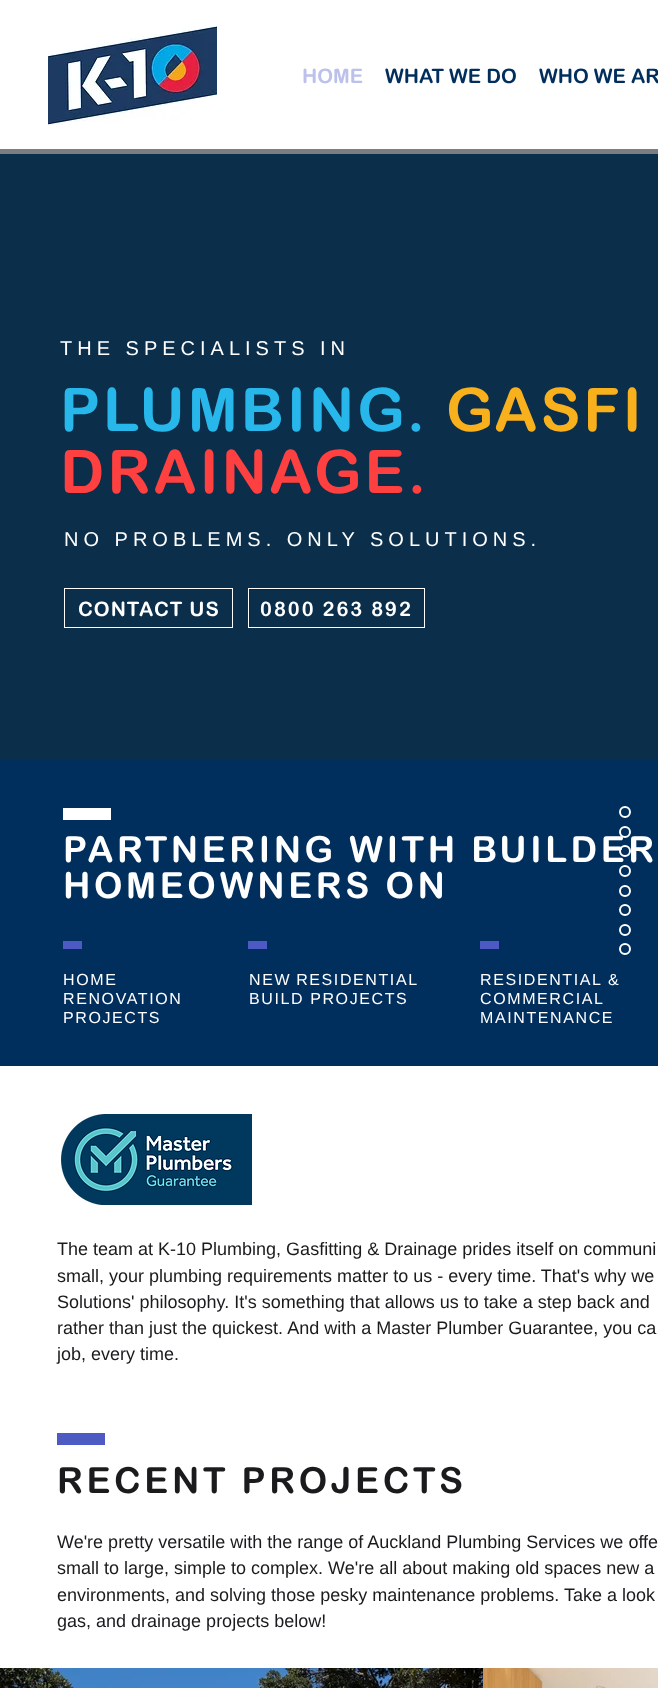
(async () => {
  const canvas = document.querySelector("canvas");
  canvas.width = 658;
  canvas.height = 1688;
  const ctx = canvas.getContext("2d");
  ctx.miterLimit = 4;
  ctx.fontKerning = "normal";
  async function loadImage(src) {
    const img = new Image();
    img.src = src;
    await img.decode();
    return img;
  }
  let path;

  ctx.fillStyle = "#0b2e4b";
  ctx.fillRect(0, 0, 658, 1688);
  ctx.fillStyle = "#ffffff";
  ctx.fillRect(0, 0, 658, 149);
  ctx.fillStyle = "#7c7c83";
  ctx.fillRect(0, 149, 658, 5);
  ctx.drawImage(await loadImage("img/1.png"), 48, 26, 169, 99);
  ctx.strokeStyle = "#ffffff";
  ctx.strokeRect(64.5, 588.5, 168, 39);
  ctx.save();
  ctx.beginPath();
  ctx.rect(249, 589, 175, 38);
  ctx.clip();
  ctx.fillStyle = "#092740";
  path = new Path2D("M150 490H523V726H150ZM250 590H425V628H250Z");
  ctx.fill(path, "evenodd");
  ctx.restore();
  ctx.strokeRect(248.5, 588.5, 176, 39);
  for (const [x, y, w, h, color] of [
    [0, 760, 658, 306, "#002e5d"],
    [63, 808, 48, 12, "#ffffff"],
    [63, 941, 19, 8, "#4e5ac3"],
    [248, 941, 19, 8, "#4e5ac3"],
    [480, 941, 19, 8, "#4e5ac3"],
    [0, 1066, 658, 602, "#ffffff"],
  ]) {
    ctx.fillStyle = color;
    ctx.fillRect(x, y, w, h);
  }
  ctx.drawImage(await loadImage("img/2.png"), 61, 1114, 191, 91);
  ctx.fillStyle = "#4e5ac3";
  ctx.fillRect(57, 1433, 48, 12);
  ctx.drawImage(await loadImage("img/3.png"), 0, 1668, 483, 20);
  ctx.drawImage(await loadImage("img/4.png"), 483, 1668, 175, 20);
  ctx.beginPath();
  ctx.arc(625, 812, 5, 0, Math.PI * 2);
  ctx.lineWidth = 2;
  ctx.stroke();
  ctx.beginPath();
  ctx.arc(625, 832, 5, 0, Math.PI * 2);
  ctx.stroke();
  ctx.beginPath();
  ctx.arc(625, 851, 5, 0, Math.PI * 2);
  ctx.stroke();
  ctx.beginPath();
  ctx.arc(625, 871, 5, 0, Math.PI * 2);
  ctx.stroke();
  ctx.beginPath();
  ctx.arc(625, 891, 5, 0, Math.PI * 2);
  ctx.stroke();
  ctx.beginPath();
  ctx.arc(625, 910, 5, 0, Math.PI * 2);
  ctx.stroke();
  ctx.beginPath();
  ctx.arc(625, 930, 5, 0, Math.PI * 2);
  ctx.stroke();
  ctx.beginPath();
  ctx.arc(625, 949, 5, 0, Math.PI * 2);
  ctx.stroke();
  ctx.font = "bold 20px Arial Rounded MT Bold";
  ctx.fillStyle = "#bcc1eb";
  ctx.fillText("HOME", 302, 83);
  ctx.fillStyle = "#002e5d";
  ctx.fillText("WHAT WE DO", 385, 83);
  ctx.fillText("WHO WE AR", 539, 83);
  ctx.letterSpacing = "5px";
  ctx.font = "20px Liberation Sans";
  ctx.fillStyle = "#ffffff";
  ctx.fillText("THE SPECIALISTS IN", 60, 355);
  ctx.letterSpacing = "3px";
  ctx.font = "bold 60px Arial Rounded MT Bold";
  ctx.fillStyle = "#27b7ea";
  ctx.fillText("PLUMBING.", 60, 431);
  ctx.fillStyle = "#f9b01d";
  ctx.fillText("GASFI", 446, 431);
  ctx.fillStyle = "#ff4040";
  ctx.fillText("DRAINAGE.", 60, 493);
  ctx.letterSpacing = "5px";
  ctx.font = "20px Liberation Sans";
  ctx.fillStyle = "#ffffff";
  ctx.fillText("NO PROBLEMS. ONLY SOLUTIONS.", 64, 546);
  ctx.letterSpacing = "1px";
  ctx.font = "bold 20px Arial Rounded MT Bold";
  ctx.fillText("CONTACT US", 78, 616);
  ctx.letterSpacing = "2px";
  ctx.fillText("0800 263 892", 260, 616);
  ctx.letterSpacing = "3.6px";
  ctx.font = "bold 36px Arial Rounded MT Bold";
  ctx.fillText("PARTNERING WITH BUILDER", 63, 862);
  ctx.fillText("HOMEOWNERS ON", 63, 898);
  ctx.letterSpacing = "1.6px";
  ctx.font = "16px Liberation Sans";
  for (const [text, x, y] of [
    ["HOME", 63, 985],
    ["RENOVATION", 63, 1004],
    ["PROJECTS", 63, 1023],
  ]) {
    ctx.fillText(text, x, y);
  }
  ctx.wordSpacing = "-1px";
  ctx.fillText("NEW RESIDENTIAL", 249, 985);
  ctx.wordSpacing = "0px";
  for (const [text, x, y] of [
    ["BUILD PROJECTS", 249, 1004],
    ["RESIDENTIAL &", 480, 985],
    ["COMMERCIAL", 480, 1004],
    ["MAINTENANCE", 480, 1023],
  ]) {
    ctx.fillText(text, x, y);
  }
  ctx.letterSpacing = "0px";
  ctx.font = "18px Liberation Sans";
  ctx.fillStyle = "#1b1b1e";
  for (const [text, x, y] of [
    ["The team at K-10 Plumbing, Gasfitting & Drainage prides itself on communi", 57, 1255],
    ["small, your plumbing requirements matter to us - every time. That's why we", 57, 1282],
    ["Solutions' philosophy. It's something that allows us to take a step back and", 57, 1308],
    ["rather than just the quickest. And with a Master Plumber Guarantee, you ca", 57, 1334],
    ["job, every time.", 57, 1360],
  ]) {
    ctx.fillText(text, x, y);
  }
  ctx.letterSpacing = "3.6px";
  ctx.font = "bold 36px Arial Rounded MT Bold";
  ctx.fillText("RECENT PROJECTS", 57, 1493);
  ctx.letterSpacing = "0px";
  ctx.font = "18px Liberation Sans";
  for (const [text, x, y] of [
    ["We're pretty versatile with the range of Auckland Plumbing Services we offe", 57, 1548],
    ["small to large, simple to complex. We're all about making old spaces new a", 57, 1574],
    ["environments, and solving those pesky maintenance problems. Take a look", 57, 1601],
    ["gas, and drainage projects below!", 57, 1627],
  ]) {
    ctx.fillText(text, x, y);
  }
})();
